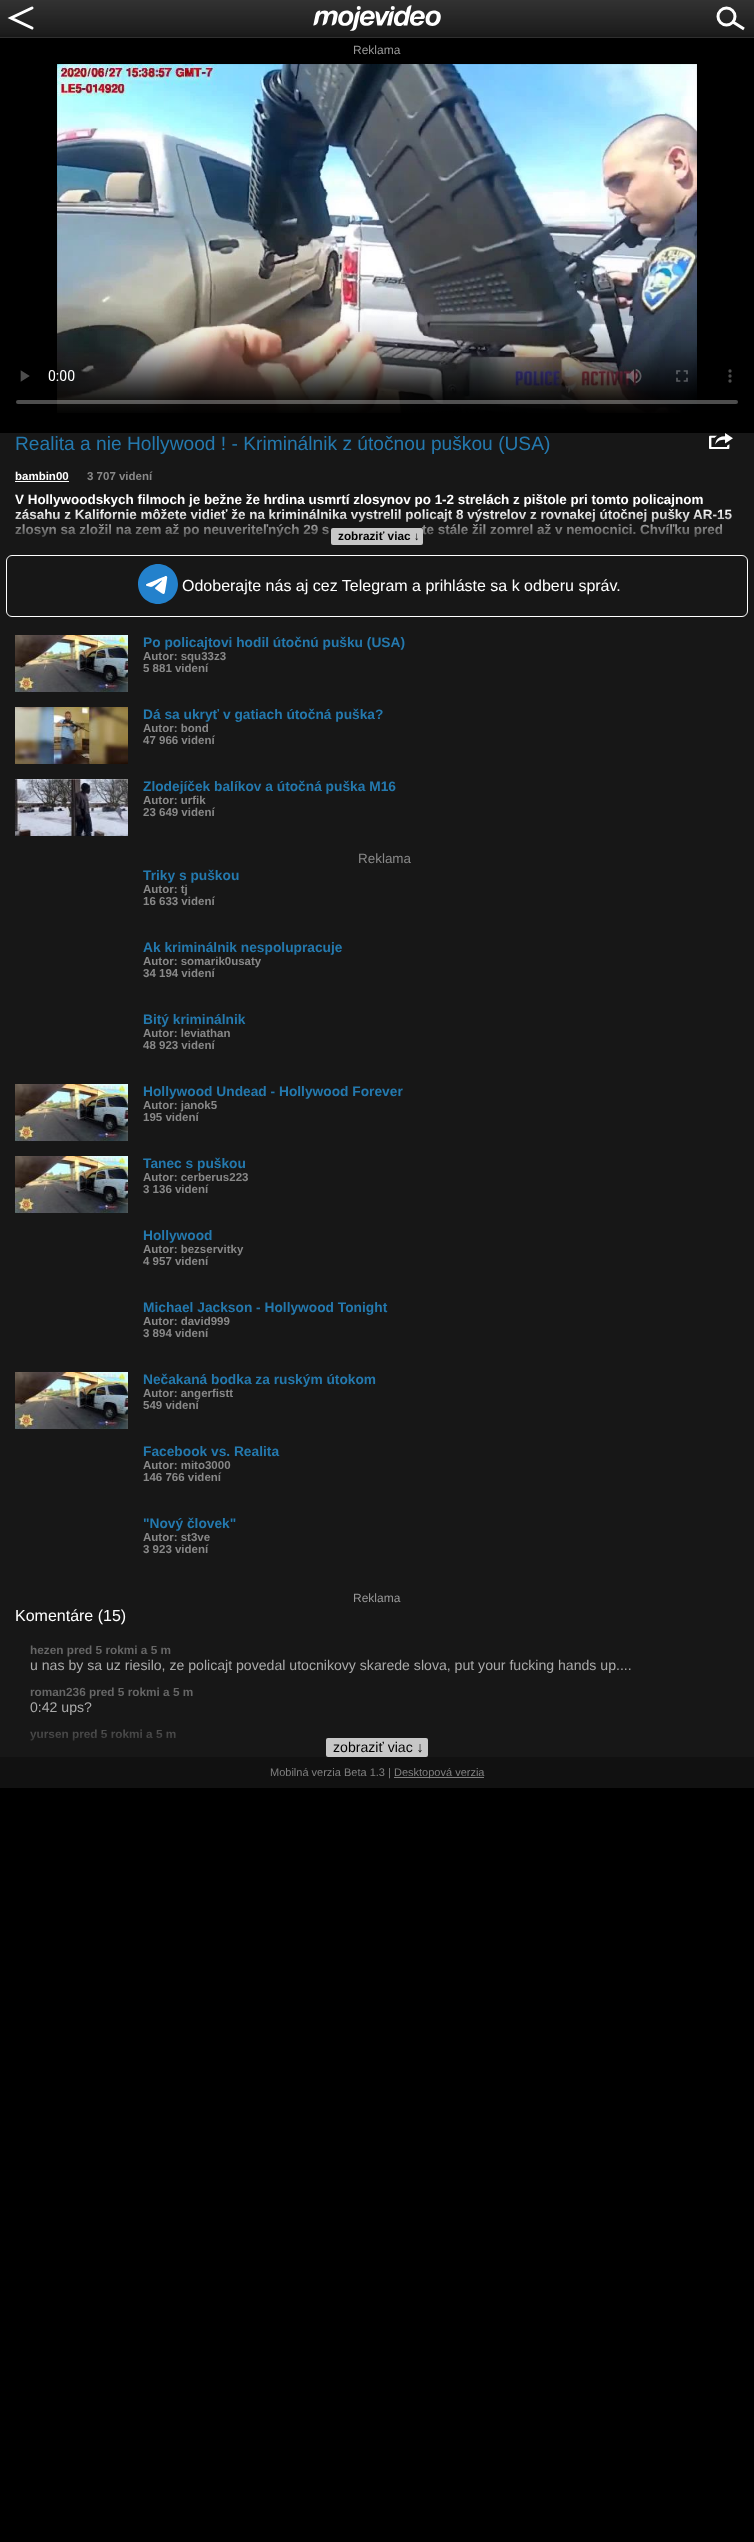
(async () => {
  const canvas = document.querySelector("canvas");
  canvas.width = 754;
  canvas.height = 2542;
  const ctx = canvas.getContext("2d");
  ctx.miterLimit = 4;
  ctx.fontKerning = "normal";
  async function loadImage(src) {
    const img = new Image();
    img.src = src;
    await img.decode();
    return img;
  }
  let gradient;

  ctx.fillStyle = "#000000";
  ctx.fillRect(0, 0, 754, 2542);
  ctx.drawImage(await loadImage("img/1.png"), 0, 0, 754, 38);
  ctx.drawImage(await loadImage("img/2.png"), 7, 6, 27, 24);
  ctx.drawImage(await loadImage("img/3.png"), 313, 5, 128, 26);
  ctx.drawImage(await loadImage("img/4.png"), 716, 6, 29, 25);
  ctx.drawImage(await loadImage("img/5.png"), 16, 64, 722, 349);
  ctx.fillStyle = "#171717";
  ctx.fillRect(0, 433, 754, 1324);
  ctx.drawImage(await loadImage("img/6.png"), 709, 433, 24, 16);
  ctx.fillStyle = "#ffffff";
  ctx.fillRect(15, 481, 54, 1);
  ctx.beginPath();
  ctx.roundRect(6.5, 555.5, 741, 61, 5.5);
  ctx.strokeStyle = "#ffffff";
  ctx.stroke();
  ctx.drawImage(await loadImage("img/7.png"), 138, 564, 40, 40);
  ctx.drawImage(await loadImage("img/8.png"), 15, 635, 113, 57);
  ctx.drawImage(await loadImage("img/9.png"), 15, 707, 113, 57);
  ctx.drawImage(await loadImage("img/10.png"), 15, 779, 113, 57);
  ctx.drawImage(await loadImage("img/8.png"), 15, 1084, 113, 57);
  ctx.drawImage(await loadImage("img/8.png"), 15, 1156, 113, 57);
  ctx.drawImage(await loadImage("img/8.png"), 15, 1372, 113, 57);
  ctx.fillStyle = "#c7c7c7";
  ctx.beginPath();
  ctx.roundRect(326, 1738, 102, 19, 2);
  ctx.fill();
  ctx.fillStyle = "#111111";
  ctx.fillRect(0, 1757, 754, 31);
  ctx.fillStyle = "#808080";
  ctx.fillRect(394, 1777, 90, 1);
  ctx.font = "12px Liberation Sans";
  ctx.fillStyle = "#999999";
  ctx.fillText("Reklama", 353, 54);
  ctx.font = "19.2px Liberation Sans";
  ctx.fillStyle = "#2479ae";
  ctx.fillText("Realita a nie Hollywood ! - Kriminálnik z útočnou puškou (USA)", 15, 450);
  ctx.font = "bold 11.5px Liberation Sans";
  ctx.fillStyle = "#ffffff";
  ctx.fillText("bambin00", 15, 480);
  ctx.fillStyle = "#888888";
  ctx.fillText("3 707 videní", 87, 480);
  ctx.font = "bold 13.45px Liberation Sans";
  ctx.fillStyle = "#ffffff";
  for (const [text, x, y] of [
    ["V Hollywoodskych filmoch je bežne že hrdina usmrtí zlosynov po 1-2 strelách z pištole pri tomto policajnom", 15, 504],
    ["zásahu z Kalifornie môžete vidieť že na kriminálnika vystrelil policajt 8 výstrelov z rovnakej útočnej pušky AR-15", 15, 519],
    ["zlosyn sa zložil na zem až po neuveriteľných 29 s", 15, 534],
    ["te stále žil zomrel až v nemocnici. Chvíľku pred", 422, 534],
  ]) {
    ctx.fillText(text, x, y);
  }
  gradient = ctx.createLinearGradient(377, 510, 377, 545);
  gradient.addColorStop(0, "rgba(23, 23, 23, 0)");
  gradient.addColorStop(1, "#171717");
  ctx.fillStyle = gradient;
  ctx.fillRect(15, 511, 717, 26);
  ctx.fillStyle = "#c7c7c7";
  ctx.beginPath();
  ctx.roundRect(331, 528, 92, 17, 2);
  ctx.fill();
  ctx.font = "bold 11.8px Liberation Sans";
  ctx.fillStyle = "#000000";
  ctx.fillText("zobraziť viac ↓", 338, 540);
  ctx.font = "16px Liberation Sans";
  ctx.fillStyle = "#ffffff";
  ctx.fillText("Odoberajte nás aj cez Telegram a prihláste sa k odberu správ.", 182, 591);
  ctx.font = "bold 13.75px Liberation Sans";
  ctx.fillStyle = "#2479ae";
  ctx.fillText("Po policajtovi hodil útočnú pušku (USA)", 143, 647);
  ctx.font = "bold 11.5px Liberation Sans";
  ctx.fillStyle = "#888888";
  ctx.fillText("Autor: squ33z3", 143, 660);
  ctx.fillText("5 881 videní", 143, 672);
  ctx.font = "bold 13.75px Liberation Sans";
  ctx.fillStyle = "#2479ae";
  ctx.fillText("Dá sa ukryť v gatiach útočná puška?", 143, 719);
  ctx.font = "bold 11.5px Liberation Sans";
  ctx.fillStyle = "#888888";
  ctx.fillText("Autor: bond", 143, 732);
  ctx.fillText("47 966 videní", 143, 744);
  ctx.font = "bold 13.75px Liberation Sans";
  ctx.fillStyle = "#2479ae";
  ctx.fillText("Zlodejíček balíkov a útočná puška M16", 143, 791);
  ctx.font = "bold 11.5px Liberation Sans";
  ctx.fillStyle = "#888888";
  ctx.fillText("Autor: urfik", 143, 804);
  ctx.fillText("23 649 videní", 143, 816);
  ctx.font = "13.45px Liberation Sans";
  ctx.fillText("Reklama", 358, 863);
  ctx.font = "bold 13.75px Liberation Sans";
  ctx.fillStyle = "#2479ae";
  ctx.fillText("Triky s puškou", 143, 880);
  ctx.font = "bold 11.5px Liberation Sans";
  ctx.fillStyle = "#888888";
  ctx.fillText("Autor: tj", 143, 893);
  ctx.fillText("16 633 videní", 143, 905);
  ctx.font = "bold 13.75px Liberation Sans";
  ctx.fillStyle = "#2479ae";
  ctx.fillText("Ak kriminálnik nespolupracuje", 143, 952);
  ctx.font = "bold 11.5px Liberation Sans";
  ctx.fillStyle = "#888888";
  ctx.fillText("Autor: somarik0usaty", 143, 965);
  ctx.fillText("34 194 videní", 143, 977);
  ctx.font = "bold 13.75px Liberation Sans";
  ctx.fillStyle = "#2479ae";
  ctx.fillText("Bitý kriminálnik", 143, 1024);
  ctx.font = "bold 11.5px Liberation Sans";
  ctx.fillStyle = "#888888";
  ctx.fillText("Autor: leviathan", 143, 1037);
  ctx.fillText("48 923 videní", 143, 1049);
  ctx.font = "bold 13.75px Liberation Sans";
  ctx.fillStyle = "#2479ae";
  ctx.fillText("Hollywood Undead - Hollywood Forever", 143, 1096);
  ctx.font = "bold 11.5px Liberation Sans";
  ctx.fillStyle = "#888888";
  ctx.fillText("Autor: janok5", 143, 1109);
  ctx.fillText("195 videní", 143, 1121);
  ctx.font = "bold 13.75px Liberation Sans";
  ctx.fillStyle = "#2479ae";
  ctx.fillText("Tanec s puškou", 143, 1168);
  ctx.font = "bold 11.5px Liberation Sans";
  ctx.fillStyle = "#888888";
  ctx.fillText("Autor: cerberus223", 143, 1181);
  ctx.fillText("3 136 videní", 143, 1193);
  ctx.font = "bold 13.75px Liberation Sans";
  ctx.fillStyle = "#2479ae";
  ctx.fillText("Hollywood", 143, 1240);
  ctx.font = "bold 11.5px Liberation Sans";
  ctx.fillStyle = "#888888";
  ctx.fillText("Autor: bezservitky", 143, 1253);
  ctx.fillText("4 957 videní", 143, 1265);
  ctx.font = "bold 13.75px Liberation Sans";
  ctx.fillStyle = "#2479ae";
  ctx.fillText("Michael Jackson - Hollywood Tonight", 143, 1312);
  ctx.font = "bold 11.5px Liberation Sans";
  ctx.fillStyle = "#888888";
  ctx.fillText("Autor: david999", 143, 1325);
  ctx.fillText("3 894 videní", 143, 1337);
  ctx.font = "bold 13.75px Liberation Sans";
  ctx.fillStyle = "#2479ae";
  ctx.fillText("Nečakaná bodka za ruským útokom", 143, 1384);
  ctx.font = "bold 11.5px Liberation Sans";
  ctx.fillStyle = "#888888";
  ctx.fillText("Autor: angerfistt", 143, 1397);
  ctx.fillText("549 videní", 143, 1409);
  ctx.font = "bold 13.75px Liberation Sans";
  ctx.fillStyle = "#2479ae";
  ctx.fillText("Facebook vs. Realita", 143, 1456);
  ctx.font = "bold 11.5px Liberation Sans";
  ctx.fillStyle = "#888888";
  ctx.fillText("Autor: mito3000", 143, 1469);
  ctx.fillText("146 766 videní", 143, 1481);
  ctx.font = "bold 13.75px Liberation Sans";
  ctx.fillStyle = "#2479ae";
  ctx.fillText("\"Nový človek\"", 143, 1528);
  ctx.font = "bold 11.5px Liberation Sans";
  ctx.fillStyle = "#888888";
  ctx.fillText("Autor: st3ve", 143, 1541);
  ctx.fillText("3 923 videní", 143, 1553);
  ctx.font = "12px Liberation Sans";
  ctx.fillStyle = "#999999";
  ctx.fillText("Reklama", 353, 1602);
  ctx.font = "16px Liberation Sans";
  ctx.fillStyle = "#ffffff";
  ctx.fillText("Komentáre (15)", 15, 1621);
  ctx.font = "bold 11.8px Liberation Sans";
  ctx.fillStyle = "#666666";
  ctx.fillText("hezen pred 5 rokmi a 5 m", 30, 1654);
  ctx.font = "14.1px Liberation Sans";
  ctx.fillStyle = "#aaaaaa";
  ctx.fillText("u nas by sa uz riesilo, ze policajt povedal utocnikovy skarede slova, put your fucking hands up....", 30, 1670);
  ctx.font = "bold 11.8px Liberation Sans";
  ctx.fillStyle = "#666666";
  ctx.fillText("roman236 pred 5 rokmi a 5 m", 30, 1696);
  ctx.font = "14.1px Liberation Sans";
  ctx.fillStyle = "#aaaaaa";
  ctx.fillText("0:42 ups?", 30, 1712);
  ctx.font = "bold 11.8px Liberation Sans";
  ctx.fillStyle = "#666666";
  ctx.fillText("yursen pred 5 rokmi a 5 m", 30, 1738);
  gradient = ctx.createLinearGradient(377, 1720, 377, 1757);
  gradient.addColorStop(0, "rgba(23, 23, 23, 0)");
  gradient.addColorStop(1, "#171717");
  ctx.fillStyle = gradient;
  ctx.fillRect(30, 1729, 146, 12);
  ctx.font = "14.1px Liberation Sans";
  ctx.fillStyle = "#000000";
  ctx.fillText("zobraziť viac ↓", 333, 1752);
  ctx.font = "11px Liberation Sans";
  ctx.fillStyle = "#808080";
  ctx.fillText("Mobilná verzia Beta 1.3 |", 270, 1776);
  ctx.fillText("Desktopová verzia", 394, 1776);
})();
